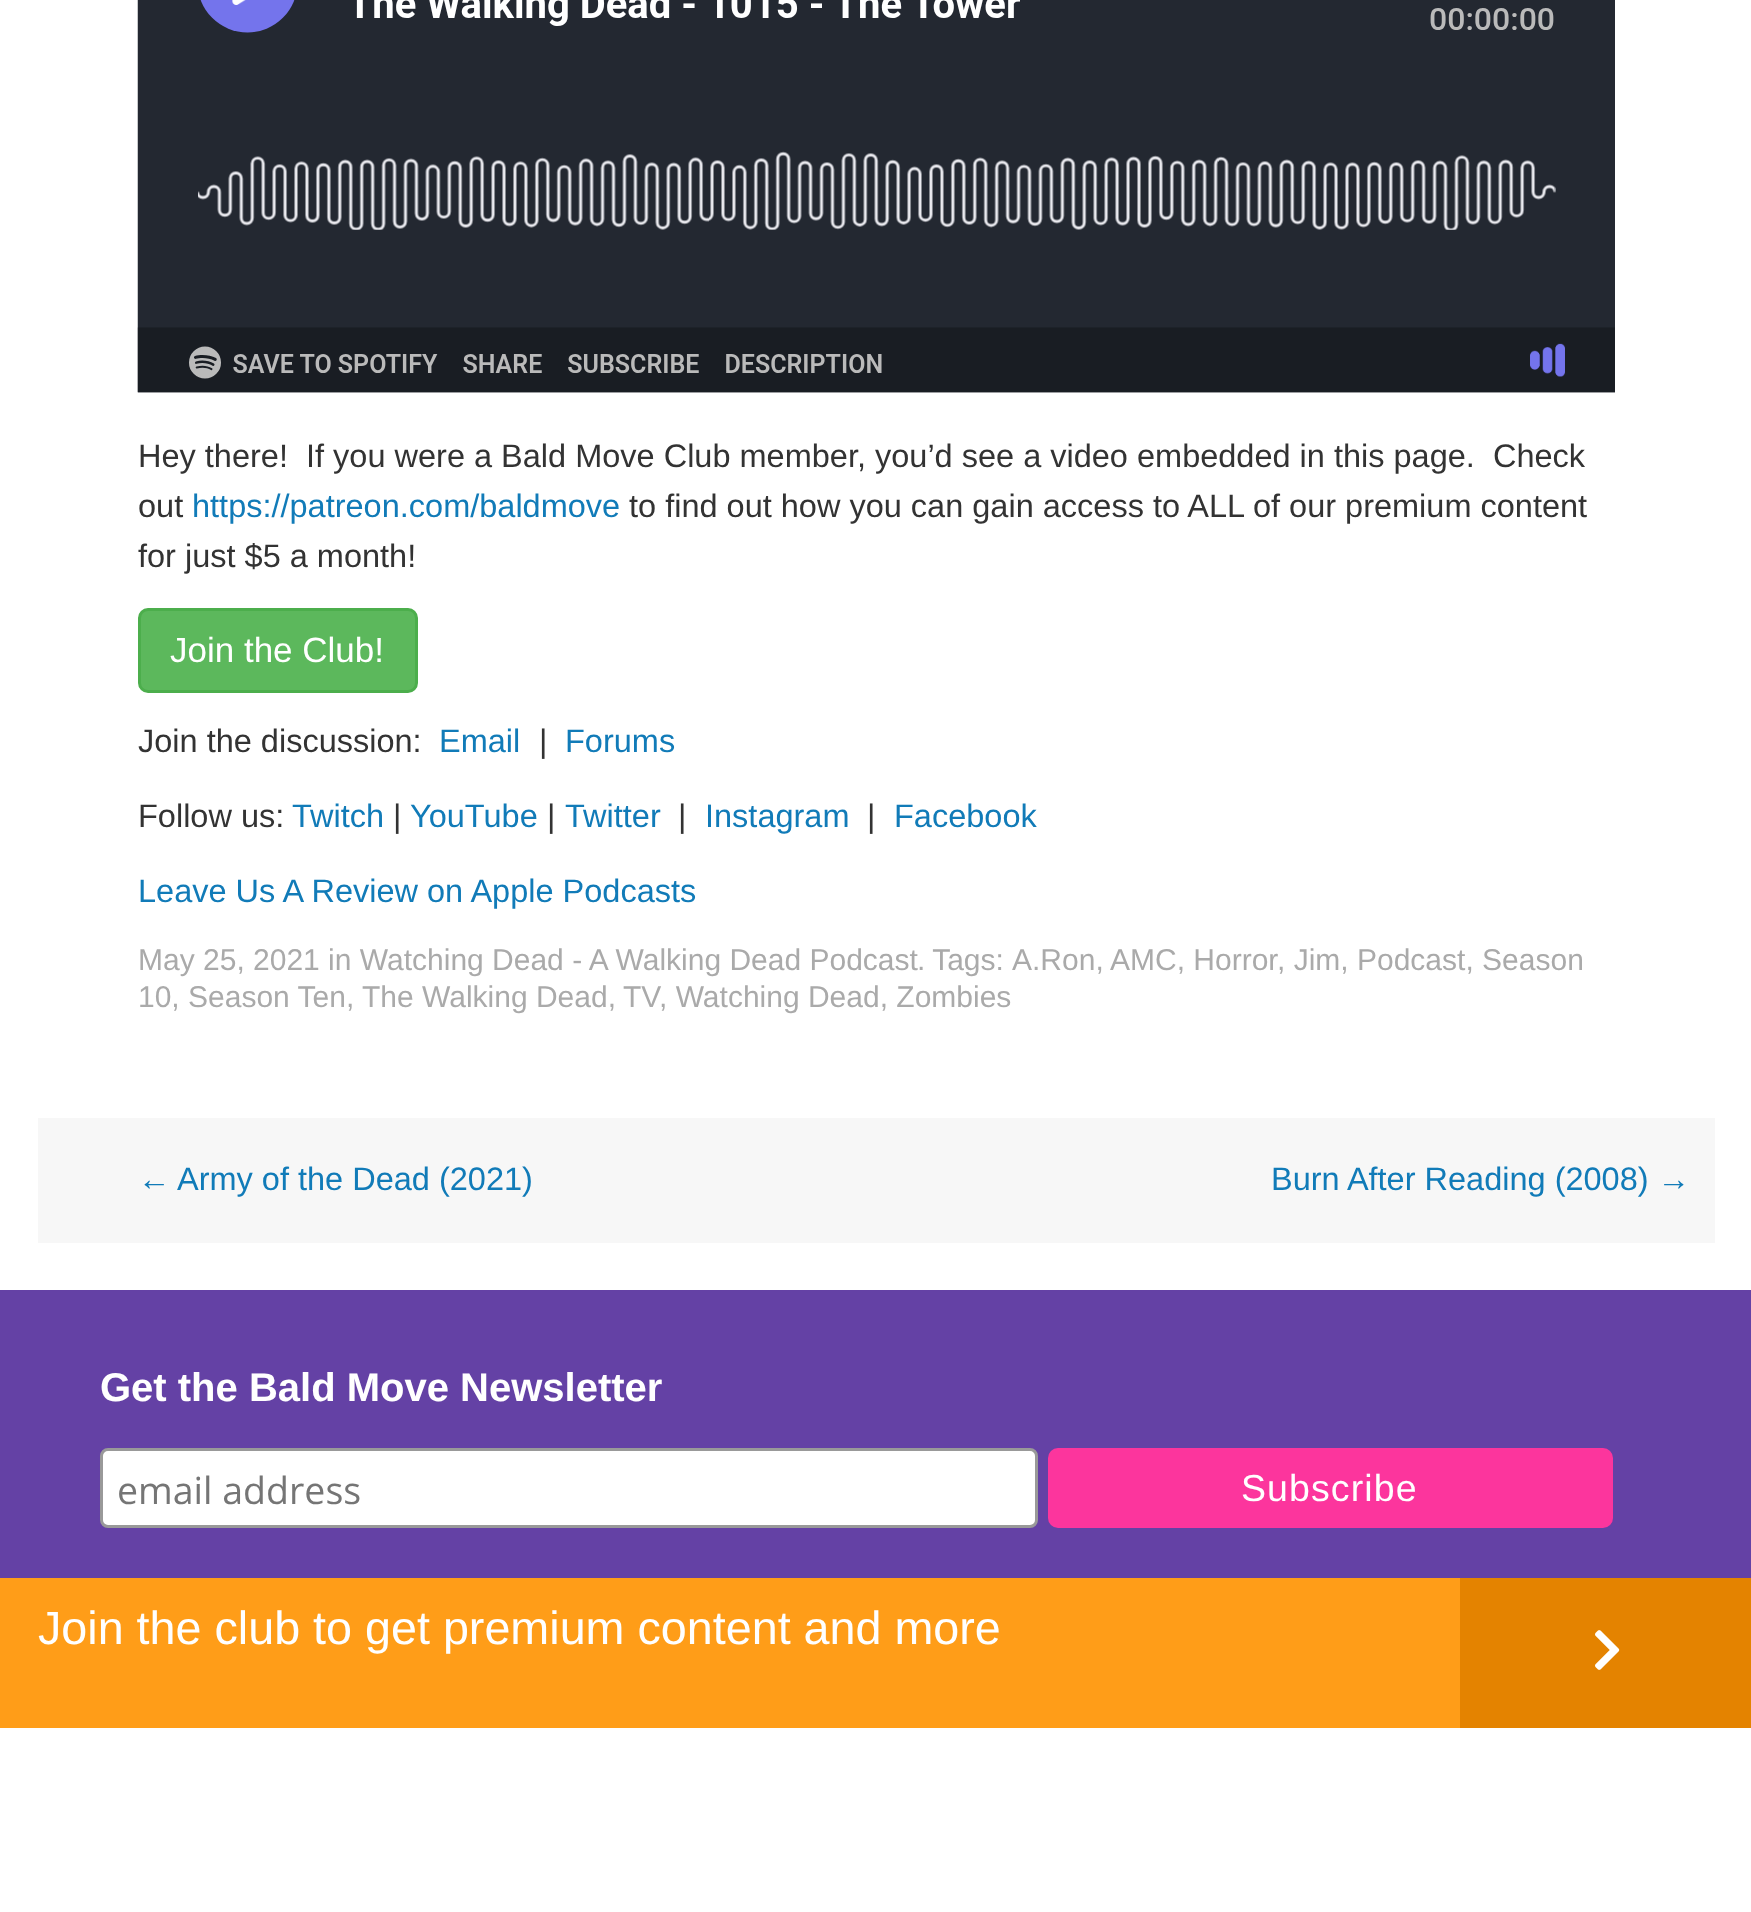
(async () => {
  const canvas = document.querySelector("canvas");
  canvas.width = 1751;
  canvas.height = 1912;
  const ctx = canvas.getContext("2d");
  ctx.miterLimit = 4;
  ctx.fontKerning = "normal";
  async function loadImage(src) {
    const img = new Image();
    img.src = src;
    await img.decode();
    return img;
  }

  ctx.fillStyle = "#ffffff";
  ctx.fillRect(0, 0, 1751, 1912);
  ctx.drawImage(await loadImage("img/1.png"), 137, 0, 1478, 393);
  ctx.fillStyle = "#5cb85c";
  ctx.beginPath();
  ctx.roundRect(139.5, 609.5, 277, 82, 8.5);
  ctx.fill();
  ctx.strokeStyle = "#4cae4c";
  ctx.lineWidth = 3;
  ctx.stroke();
  ctx.fillStyle = "#f7f7f7";
  ctx.fillRect(38, 1118, 1677, 125);
  ctx.fillStyle = "#6441a5";
  ctx.fillRect(0, 1290, 1751, 288);
  ctx.fillStyle = "#ffffff";
  ctx.beginPath();
  ctx.roundRect(101.5, 1449.5, 935, 77, 6.5);
  ctx.fill();
  ctx.strokeStyle = "#999999";
  ctx.stroke();
  ctx.fillStyle = "#fc359d";
  ctx.beginPath();
  ctx.roundRect(1048, 1448, 565, 80, 10);
  ctx.fill();
  ctx.fillStyle = "#ff9d18";
  ctx.fillRect(0, 1578, 1460, 150);
  ctx.fillStyle = "#e48300";
  ctx.fillRect(1460, 1578, 291, 150);
  ctx.drawImage(await loadImage("img/2.png"), 1595, 1630, 25, 40);
  ctx.font = "32.5px Liberation Sans";
  ctx.fillStyle = "#333333";
  ctx.fillText("Hey there!  If you were a Bald Move Club member, you’d see a video embedded in this page.  Check", 138, 467);
  ctx.fillText("out", 138, 517);
  ctx.fillStyle = "#117bb8";
  ctx.fillText("https://patreon.com/baldmove", 192, 517);
  ctx.fillStyle = "#333333";
  ctx.fillText("to find out how you can gain access to ALL of our premium content", 629, 517);
  ctx.fillText("for just $5 a month!", 138, 567);
  ctx.font = "35px Liberation Sans";
  ctx.fillStyle = "#ffffff";
  ctx.fillText("Join the Club!", 170, 662);
  ctx.font = "32.5px Liberation Sans";
  ctx.fillStyle = "#333333";
  ctx.fillText("Join the discussion:", 138, 752);
  ctx.fillStyle = "#117bb8";
  ctx.fillText("Email", 439, 752);
  ctx.fillStyle = "#333333";
  ctx.fillText("|", 539, 752);
  ctx.fillStyle = "#117bb8";
  ctx.fillText("Forums", 565, 752);
  ctx.fillStyle = "#333333";
  ctx.fillText("Follow us:", 138, 827);
  ctx.fillStyle = "#117bb8";
  ctx.fillText("Twitch", 292, 827);
  ctx.fillStyle = "#333333";
  ctx.fillText("|", 393, 827);
  ctx.fillStyle = "#117bb8";
  ctx.fillText("YouTube", 410, 827);
  ctx.fillStyle = "#333333";
  ctx.fillText("|", 547, 827);
  ctx.fillStyle = "#117bb8";
  ctx.fillText("Twitter", 565, 827);
  ctx.fillStyle = "#333333";
  ctx.fillText("|", 678, 827);
  ctx.fillStyle = "#117bb8";
  ctx.fillText("Instagram", 705, 827);
  ctx.fillStyle = "#333333";
  ctx.fillText("|", 867, 827);
  ctx.fillStyle = "#117bb8";
  ctx.fillText("Facebook", 894, 827);
  ctx.fillText("Leave Us A Review on Apple Podcasts", 138, 902);
  ctx.font = "30px Liberation Sans";
  ctx.fillStyle = "#aaaaaa";
  ctx.fillText("May 25, 2021 in Watching Dead - A Walking Dead Podcast", 138, 970);
  ctx.wordSpacing = "-1px";
  ctx.fillText(". Tags:", 917, 970);
  ctx.wordSpacing = "0px";
  for (const [text, x, y] of [
    ["A.Ron,", 1012, 970],
    ["AMC, Horror", 1110, 970],
    [", Jim, Podcast, Season", 1277, 970],
    ["10, Season Ten,", 138, 1007],
    ["The Walking Dead,", 362, 1007],
    ["TV", 623, 1007],
    [", Watching Dead, Zombies", 659, 1007],
  ]) {
    ctx.fillText(text, x, y);
  }
  ctx.font = "32.5px Liberation Sans";
  ctx.fillStyle = "#117bb8";
  for (const [text, x, y] of [
    ["←", 138, 1190],
    ["Army of the Dead (2021)", 177, 1190],
    ["Burn After Reading (2008) →", 1271, 1190],
  ]) {
    ctx.fillText(text, x, y);
  }
  ctx.font = "bold 40px Liberation Sans";
  ctx.fillStyle = "#ffffff";
  ctx.fillText("Get the Bald Move Newsletter", 100, 1401);
  ctx.font = "37.5px Open Sans";
  ctx.fillStyle = "#757575";
  ctx.fillText("email address", 117, 1504);
  ctx.letterSpacing = "1.1px";
  ctx.font = "37.5px Liberation Sans";
  ctx.fillStyle = "#ffffff";
  ctx.fillText("Subscribe", 1241, 1501);
  ctx.letterSpacing = "0px";
  ctx.font = "46.7px Liberation Sans";
  ctx.fillText("Join the club to get premium content and more", 38, 1644);
})();
